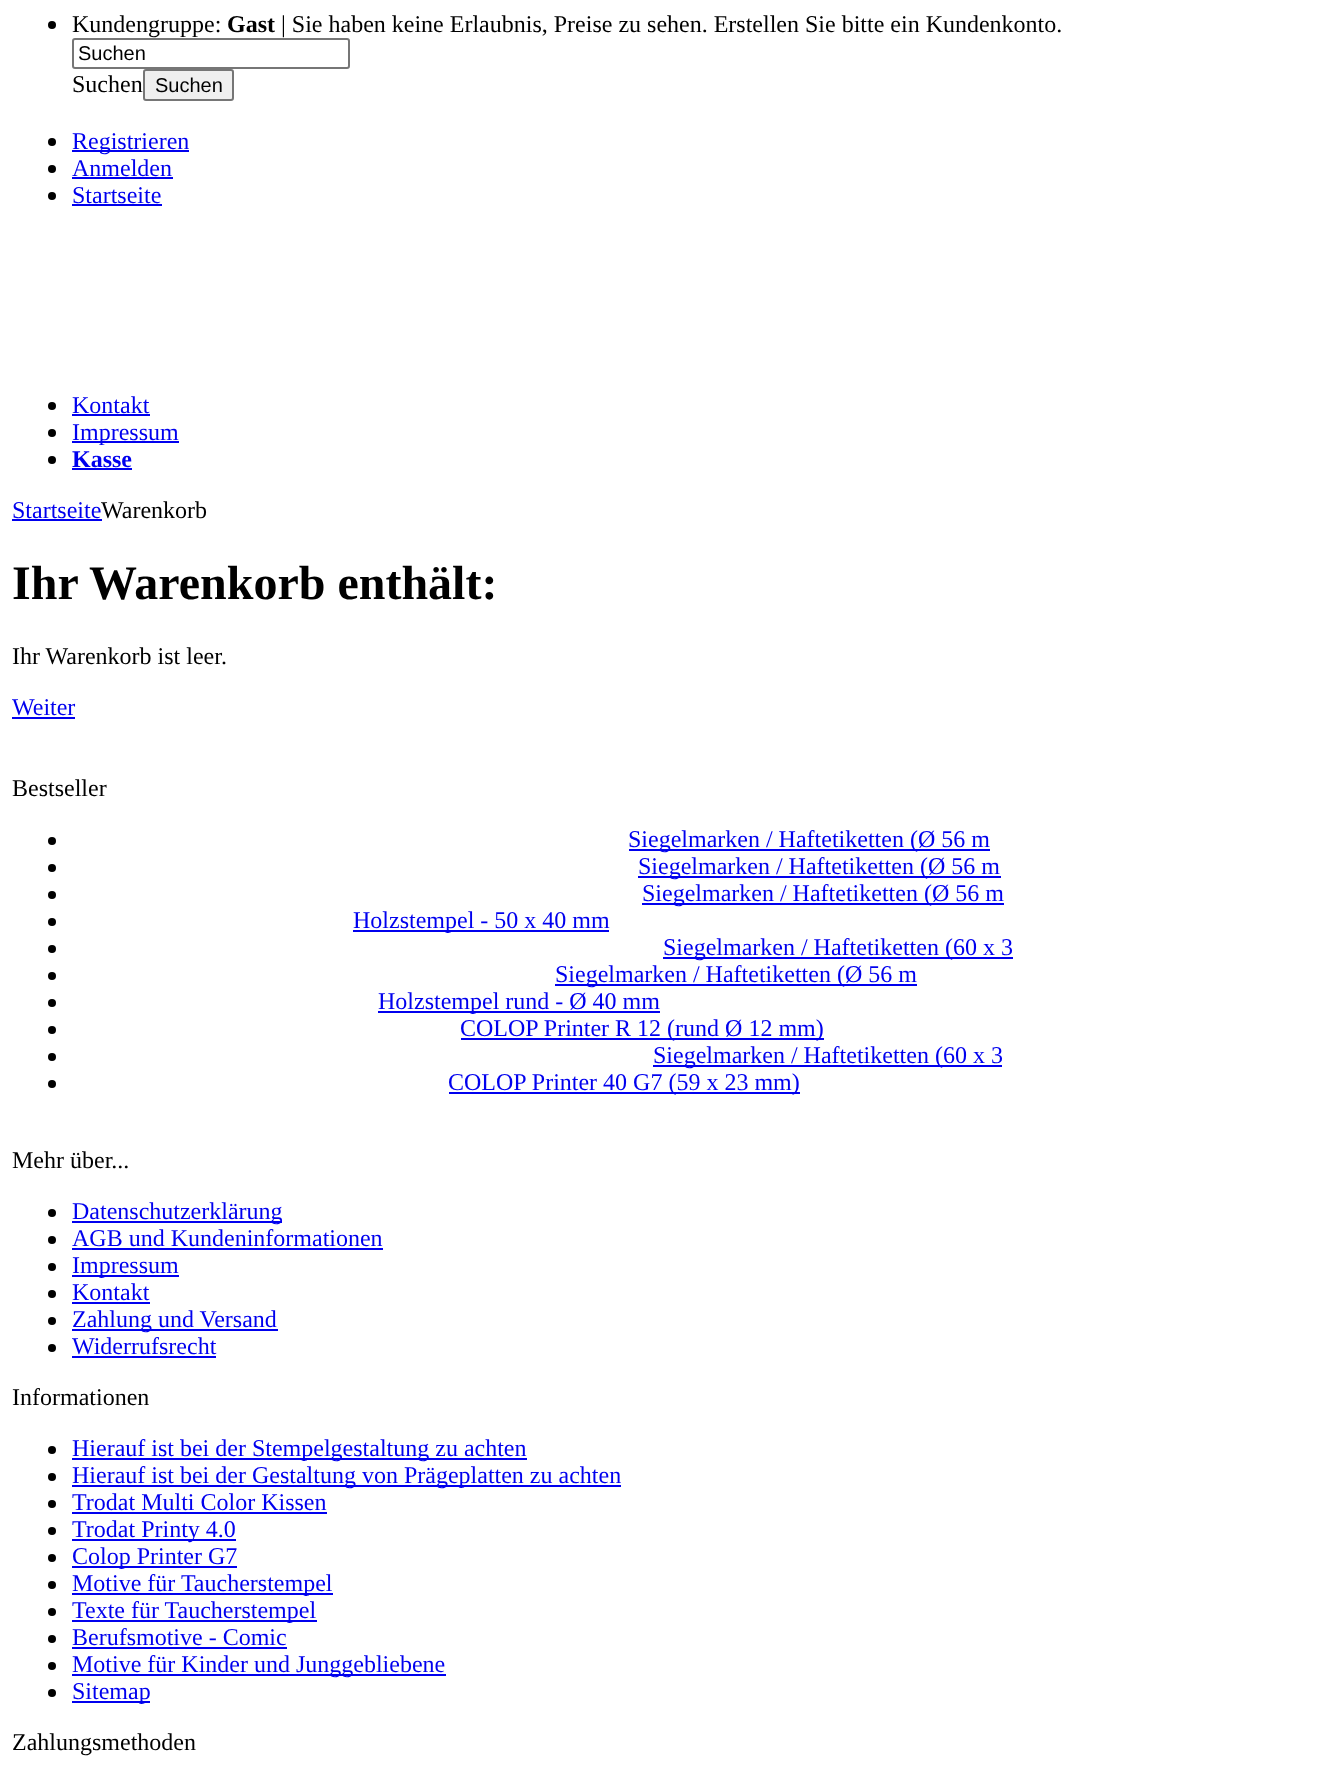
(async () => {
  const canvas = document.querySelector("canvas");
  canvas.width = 1334;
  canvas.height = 1768;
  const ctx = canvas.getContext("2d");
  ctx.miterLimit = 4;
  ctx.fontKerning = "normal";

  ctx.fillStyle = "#ffffff";
  ctx.fillRect(0, 0, 1334, 1768);
  ctx.fillStyle = "#000000";
  ctx.beginPath();
  ctx.arc(52, 25, 4, 0, Math.PI * 2);
  ctx.fill();
  ctx.beginPath();
  ctx.roundRect(73, 39, 276, 29, 2);
  ctx.strokeStyle = "#767676";
  ctx.lineWidth = 2;
  ctx.stroke();
  ctx.fillStyle = "#efefef";
  ctx.beginPath();
  ctx.roundRect(144, 70, 89, 30, 2);
  ctx.fill();
  ctx.stroke();
  ctx.fillStyle = "#000000";
  ctx.beginPath();
  ctx.arc(52, 142, 4, 0, Math.PI * 2);
  ctx.fill();
  ctx.fillStyle = "#0000ee";
  ctx.fillRect(72, 150, 117, 2);
  ctx.fillStyle = "#000000";
  ctx.beginPath();
  ctx.arc(52, 169, 4, 0, Math.PI * 2);
  ctx.fill();
  ctx.fillStyle = "#0000ee";
  ctx.fillRect(72, 177, 101, 2);
  ctx.fillStyle = "#000000";
  ctx.beginPath();
  ctx.arc(52, 196, 4, 0, Math.PI * 2);
  ctx.fill();
  ctx.fillStyle = "#0000ee";
  ctx.fillRect(72, 204, 90, 2);
  ctx.fillStyle = "#000000";
  ctx.beginPath();
  ctx.arc(52, 406, 4, 0, Math.PI * 2);
  ctx.fill();
  ctx.fillStyle = "#0000ee";
  ctx.fillRect(72, 414, 78, 2);
  ctx.fillStyle = "#000000";
  ctx.beginPath();
  ctx.arc(52, 433, 4, 0, Math.PI * 2);
  ctx.fill();
  ctx.fillStyle = "#0000ee";
  ctx.fillRect(72, 441, 107, 2);
  ctx.fillStyle = "#000000";
  ctx.beginPath();
  ctx.arc(52, 460, 4, 0, Math.PI * 2);
  ctx.fill();
  for (const [x, y, w, h, color] of [
    [72, 468, 60, 2, "#0000ee"],
    [12, 519, 90, 2, "#0000ee"],
    [12, 717, 63, 2, "#0000ee"],
  ]) {
    ctx.fillStyle = color;
    ctx.fillRect(x, y, w, h);
  }
  ctx.fillStyle = "#000000";
  ctx.beginPath();
  ctx.arc(52, 841, 4, 0, Math.PI * 2);
  ctx.fill();
  ctx.fillStyle = "#0000ee";
  ctx.fillRect(629, 849, 361, 2);
  ctx.fillStyle = "#000000";
  ctx.beginPath();
  ctx.arc(52, 868, 4, 0, Math.PI * 2);
  ctx.fill();
  ctx.fillStyle = "#0000ee";
  ctx.fillRect(638, 876, 363, 2);
  ctx.fillStyle = "#000000";
  ctx.beginPath();
  ctx.arc(52, 895, 4, 0, Math.PI * 2);
  ctx.fill();
  ctx.fillStyle = "#0000ee";
  ctx.fillRect(642, 903, 362, 2);
  ctx.fillStyle = "#000000";
  ctx.beginPath();
  ctx.arc(52, 922, 4, 0, Math.PI * 2);
  ctx.fill();
  ctx.fillStyle = "#0000ee";
  ctx.fillRect(353, 930, 256, 2);
  ctx.fillStyle = "#000000";
  ctx.beginPath();
  ctx.arc(52, 949, 4, 0, Math.PI * 2);
  ctx.fill();
  ctx.fillStyle = "#0000ee";
  ctx.fillRect(663, 957, 350, 2);
  ctx.fillStyle = "#000000";
  ctx.beginPath();
  ctx.arc(52, 976, 4, 0, Math.PI * 2);
  ctx.fill();
  ctx.fillStyle = "#0000ee";
  ctx.fillRect(555, 984, 362, 2);
  ctx.fillStyle = "#000000";
  ctx.beginPath();
  ctx.arc(52, 1003, 4, 0, Math.PI * 2);
  ctx.fill();
  ctx.fillStyle = "#0000ee";
  ctx.fillRect(378, 1011, 282, 2);
  ctx.fillStyle = "#000000";
  ctx.beginPath();
  ctx.arc(52, 1030, 4, 0, Math.PI * 2);
  ctx.fill();
  ctx.fillStyle = "#0000ee";
  ctx.fillRect(461, 1038, 363, 2);
  ctx.fillStyle = "#000000";
  ctx.beginPath();
  ctx.arc(52, 1057, 4, 0, Math.PI * 2);
  ctx.fill();
  ctx.fillStyle = "#0000ee";
  ctx.fillRect(653, 1065, 349, 2);
  ctx.fillStyle = "#000000";
  ctx.beginPath();
  ctx.arc(52, 1084, 4, 0, Math.PI * 2);
  ctx.fill();
  ctx.fillStyle = "#0000ee";
  ctx.fillRect(449, 1092, 351, 2);
  ctx.fillStyle = "#000000";
  ctx.beginPath();
  ctx.arc(52, 1213, 4, 0, Math.PI * 2);
  ctx.fill();
  ctx.fillStyle = "#0000ee";
  ctx.fillRect(72, 1221, 210, 2);
  ctx.fillStyle = "#000000";
  ctx.beginPath();
  ctx.arc(52, 1240, 4, 0, Math.PI * 2);
  ctx.fill();
  ctx.fillStyle = "#0000ee";
  ctx.fillRect(72, 1248, 311, 2);
  ctx.fillStyle = "#000000";
  ctx.beginPath();
  ctx.arc(52, 1267, 4, 0, Math.PI * 2);
  ctx.fill();
  ctx.fillStyle = "#0000ee";
  ctx.fillRect(72, 1275, 107, 2);
  ctx.fillStyle = "#000000";
  ctx.beginPath();
  ctx.arc(52, 1294, 4, 0, Math.PI * 2);
  ctx.fill();
  ctx.fillStyle = "#0000ee";
  ctx.fillRect(72, 1302, 78, 2);
  ctx.fillStyle = "#000000";
  ctx.beginPath();
  ctx.arc(52, 1321, 4, 0, Math.PI * 2);
  ctx.fill();
  ctx.fillStyle = "#0000ee";
  ctx.fillRect(72, 1329, 206, 2);
  ctx.fillStyle = "#000000";
  ctx.beginPath();
  ctx.arc(52, 1348, 4, 0, Math.PI * 2);
  ctx.fill();
  ctx.fillStyle = "#0000ee";
  ctx.fillRect(72, 1356, 144, 2);
  ctx.fillStyle = "#000000";
  ctx.beginPath();
  ctx.arc(52, 1450, 4, 0, Math.PI * 2);
  ctx.fill();
  ctx.fillStyle = "#0000ee";
  ctx.fillRect(72, 1458, 455, 2);
  ctx.fillStyle = "#000000";
  ctx.beginPath();
  ctx.arc(52, 1477, 4, 0, Math.PI * 2);
  ctx.fill();
  ctx.fillStyle = "#0000ee";
  ctx.fillRect(72, 1485, 549, 2);
  ctx.fillStyle = "#000000";
  ctx.beginPath();
  ctx.arc(52, 1504, 4, 0, Math.PI * 2);
  ctx.fill();
  ctx.fillStyle = "#0000ee";
  ctx.fillRect(72, 1512, 255, 2);
  ctx.fillStyle = "#000000";
  ctx.beginPath();
  ctx.arc(52, 1531, 4, 0, Math.PI * 2);
  ctx.fill();
  ctx.fillStyle = "#0000ee";
  ctx.fillRect(72, 1539, 164, 2);
  ctx.fillStyle = "#000000";
  ctx.beginPath();
  ctx.arc(52, 1558, 4, 0, Math.PI * 2);
  ctx.fill();
  ctx.fillStyle = "#0000ee";
  ctx.fillRect(72, 1566, 165, 2);
  ctx.fillStyle = "#000000";
  ctx.beginPath();
  ctx.arc(52, 1585, 4, 0, Math.PI * 2);
  ctx.fill();
  ctx.fillStyle = "#0000ee";
  ctx.fillRect(72, 1593, 261, 2);
  ctx.fillStyle = "#000000";
  ctx.beginPath();
  ctx.arc(52, 1612, 4, 0, Math.PI * 2);
  ctx.fill();
  ctx.fillStyle = "#0000ee";
  ctx.fillRect(72, 1620, 245, 2);
  ctx.fillStyle = "#000000";
  ctx.beginPath();
  ctx.arc(52, 1639, 4, 0, Math.PI * 2);
  ctx.fill();
  ctx.fillStyle = "#0000ee";
  ctx.fillRect(72, 1647, 215, 2);
  ctx.fillStyle = "#000000";
  ctx.beginPath();
  ctx.arc(52, 1666, 4, 0, Math.PI * 2);
  ctx.fill();
  ctx.fillStyle = "#0000ee";
  ctx.fillRect(72, 1674, 374, 2);
  ctx.fillStyle = "#000000";
  ctx.beginPath();
  ctx.arc(52, 1693, 4, 0, Math.PI * 2);
  ctx.fill();
  ctx.fillStyle = "#0000ee";
  ctx.fillRect(72, 1701, 78, 2);
  ctx.font = "24px Liberation Serif";
  ctx.fillStyle = "#000000";
  ctx.fillText("Kundengruppe:", 72, 32);
  ctx.font = "bold 24px Liberation Serif";
  ctx.fillText("Gast", 227, 32);
  ctx.font = "24px Liberation Serif";
  ctx.fillText("| Sie haben keine Erlaubnis, Preise zu sehen. Erstellen Sie bitte ein Kundenkonto.", 281, 32);
  ctx.font = "20px Liberation Sans";
  ctx.fillText("Suchen", 78, 60);
  ctx.font = "24px Liberation Serif";
  ctx.fillText("Suchen", 72, 92);
  ctx.font = "20px Liberation Sans";
  ctx.fillText("Suchen", 155, 92);
  ctx.font = "24px Liberation Serif";
  ctx.fillStyle = "#0000ee";
  for (const [text, x, y] of [
    ["Registrieren", 72, 149],
    ["Anmelden", 72, 176],
    ["Startseite", 72, 203],
    ["Kontakt", 72, 413],
    ["Impressum", 72, 440],
  ]) {
    ctx.fillText(text, x, y);
  }
  ctx.font = "bold 24px Liberation Serif";
  ctx.fillText("Kasse", 72, 467);
  ctx.font = "24px Liberation Serif";
  ctx.fillText("Startseite", 12, 518);
  ctx.fillStyle = "#000000";
  ctx.fillText("Warenkorb", 101, 518);
  ctx.font = "bold 48px Liberation Serif";
  ctx.fillText("Ihr Warenkorb enthält:", 12, 599);
  ctx.font = "24px Liberation Serif";
  ctx.fillText("Ihr Warenkorb ist leer.", 12, 664);
  ctx.fillStyle = "#0000ee";
  ctx.fillText("Weiter", 12, 715);
  ctx.fillStyle = "#000000";
  ctx.fillText("Bestseller", 12, 796);
  ctx.fillStyle = "#0000ee";
  for (const [text, x, y] of [
    ["Siegelmarken / Haftetiketten (Ø 56 m", 628, 847],
    ["Siegelmarken / Haftetiketten (Ø 56 m", 638, 874],
    ["Siegelmarken / Haftetiketten (Ø 56 m", 642, 901],
    ["Holzstempel - 50 x 40 mm", 353, 928],
    ["Siegelmarken / Haftetiketten (60 x 3", 663, 955],
    ["Siegelmarken / Haftetiketten (Ø 56 m", 555, 982],
    ["Holzstempel rund - Ø 40 mm", 378, 1009],
    ["COLOP Printer R 12 (rund Ø 12 mm)", 460, 1036],
    ["Siegelmarken / Haftetiketten (60 x 3", 653, 1063],
    ["COLOP Printer 40 G7 (59 x 23 mm)", 448, 1090],
  ]) {
    ctx.fillText(text, x, y);
  }
  ctx.fillStyle = "#000000";
  ctx.fillText("Mehr über...", 12, 1168);
  ctx.fillStyle = "#0000ee";
  for (const [text, x, y] of [
    ["Datenschutzerklärung", 72, 1219],
    ["AGB und Kundeninformationen", 72, 1246],
    ["Impressum", 72, 1273],
    ["Kontakt", 72, 1300],
    ["Zahlung und Versand", 72, 1327],
    ["Widerrufsrecht", 72, 1354],
  ]) {
    ctx.fillText(text, x, y);
  }
  ctx.fillStyle = "#000000";
  ctx.fillText("Informationen", 12, 1405);
  ctx.fillStyle = "#0000ee";
  for (const [text, x, y] of [
    ["Hierauf ist bei der Stempelgestaltung zu achten", 72, 1456],
    ["Hierauf ist bei der Gestaltung von Prägeplatten zu achten", 72, 1483],
    ["Trodat Multi Color Kissen", 72, 1510],
    ["Trodat Printy 4.0", 72, 1537],
    ["Colop Printer G7", 72, 1564],
    ["Motive für Taucherstempel", 72, 1591],
    ["Texte für Taucherstempel", 72, 1618],
    ["Berufsmotive - Comic", 72, 1645],
    ["Motive für Kinder und Junggebliebene", 72, 1672],
    ["Sitemap", 72, 1699],
  ]) {
    ctx.fillText(text, x, y);
  }
  ctx.fillStyle = "#000000";
  ctx.fillText("Zahlungsmethoden", 12, 1750);
})();
